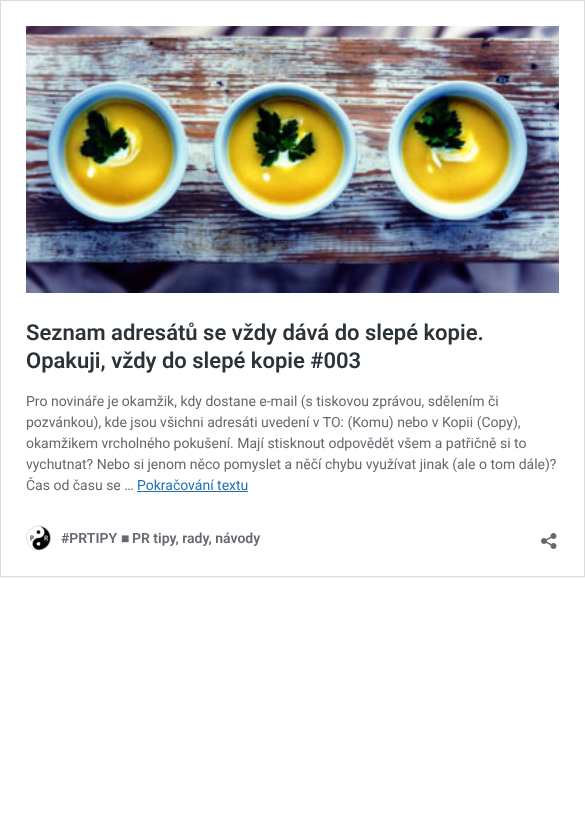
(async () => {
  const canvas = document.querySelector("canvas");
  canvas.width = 585;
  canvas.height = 832;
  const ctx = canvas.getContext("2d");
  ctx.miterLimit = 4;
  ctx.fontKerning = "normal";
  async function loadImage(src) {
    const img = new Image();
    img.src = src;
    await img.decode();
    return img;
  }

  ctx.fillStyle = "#ffffff";
  ctx.fillRect(0, 0, 585, 832);
  ctx.save();
  ctx.beginPath();
  ctx.rect(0, 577, 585, 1);
  ctx.clip();
  ctx.fillStyle = "rgba(0, 0, 0, 0.05)";
  ctx.filter = "blur(0.5px)";
  ctx.beginPath();
  ctx.rect(0, 1, 585, 577);
  ctx.fill();
  ctx.filter = "none";
  ctx.restore();
  ctx.strokeStyle = "#dcdcde";
  ctx.strokeRect(0.5, 0.5, 584, 576);
  ctx.drawImage(await loadImage("img/1.png"), 26, 26, 533, 267);
  ctx.fillStyle = "#2271b1";
  ctx.fillRect(137, 491, 111, 1);
  ctx.drawImage(await loadImage("img/2.png"), 26, 525, 25, 26);
  ctx.drawImage(await loadImage("img/3.png"), 541, 533, 16, 16);
  ctx.font = "600 22px Roboto";
  ctx.fillStyle = "#2c3338";
  ctx.fillText("Seznam adresátů se vždy dává do slepé kopie.", 26, 340);
  ctx.fillText("Opakuji, vždy do slepé kopie #003", 26, 368);
  ctx.font = "14px Roboto";
  ctx.fillStyle = "#646970";
  for (const [text, x, y] of [
    ["Pro novináře je okamžik, kdy dostane e-mail (s tiskovou zprávou, sdělením či", 26, 406],
    ["pozvánkou), kde jsou všichni adresáti uvedení v TO: (Komu) nebo v Kopii (Copy),", 26, 427],
    ["okamžikem vrcholného pokušení. Mají stisknout odpovědět všem a patřičně si to", 26, 448],
    ["vychutnat? Nebo si jenom něco pomyslet a něčí chybu využívat jinak (ale o tom dále)?", 26, 469],
    ["Čas od času se …", 26, 490],
  ]) {
    ctx.fillText(text, x, y);
  }
  ctx.fillStyle = "#2271b1";
  ctx.fillText("Pokračování textu", 137, 490);
  ctx.font = "600 14px Roboto";
  ctx.fillStyle = "#646970";
  ctx.fillText("#PRTIPY", 61, 543);
  ctx.font = "bold 14px Liberation Sans";
  ctx.fillText("■", 121, 543);
  ctx.font = "600 14px Roboto";
  ctx.fillText("PR tipy, rady, návody", 132, 543);
})();
